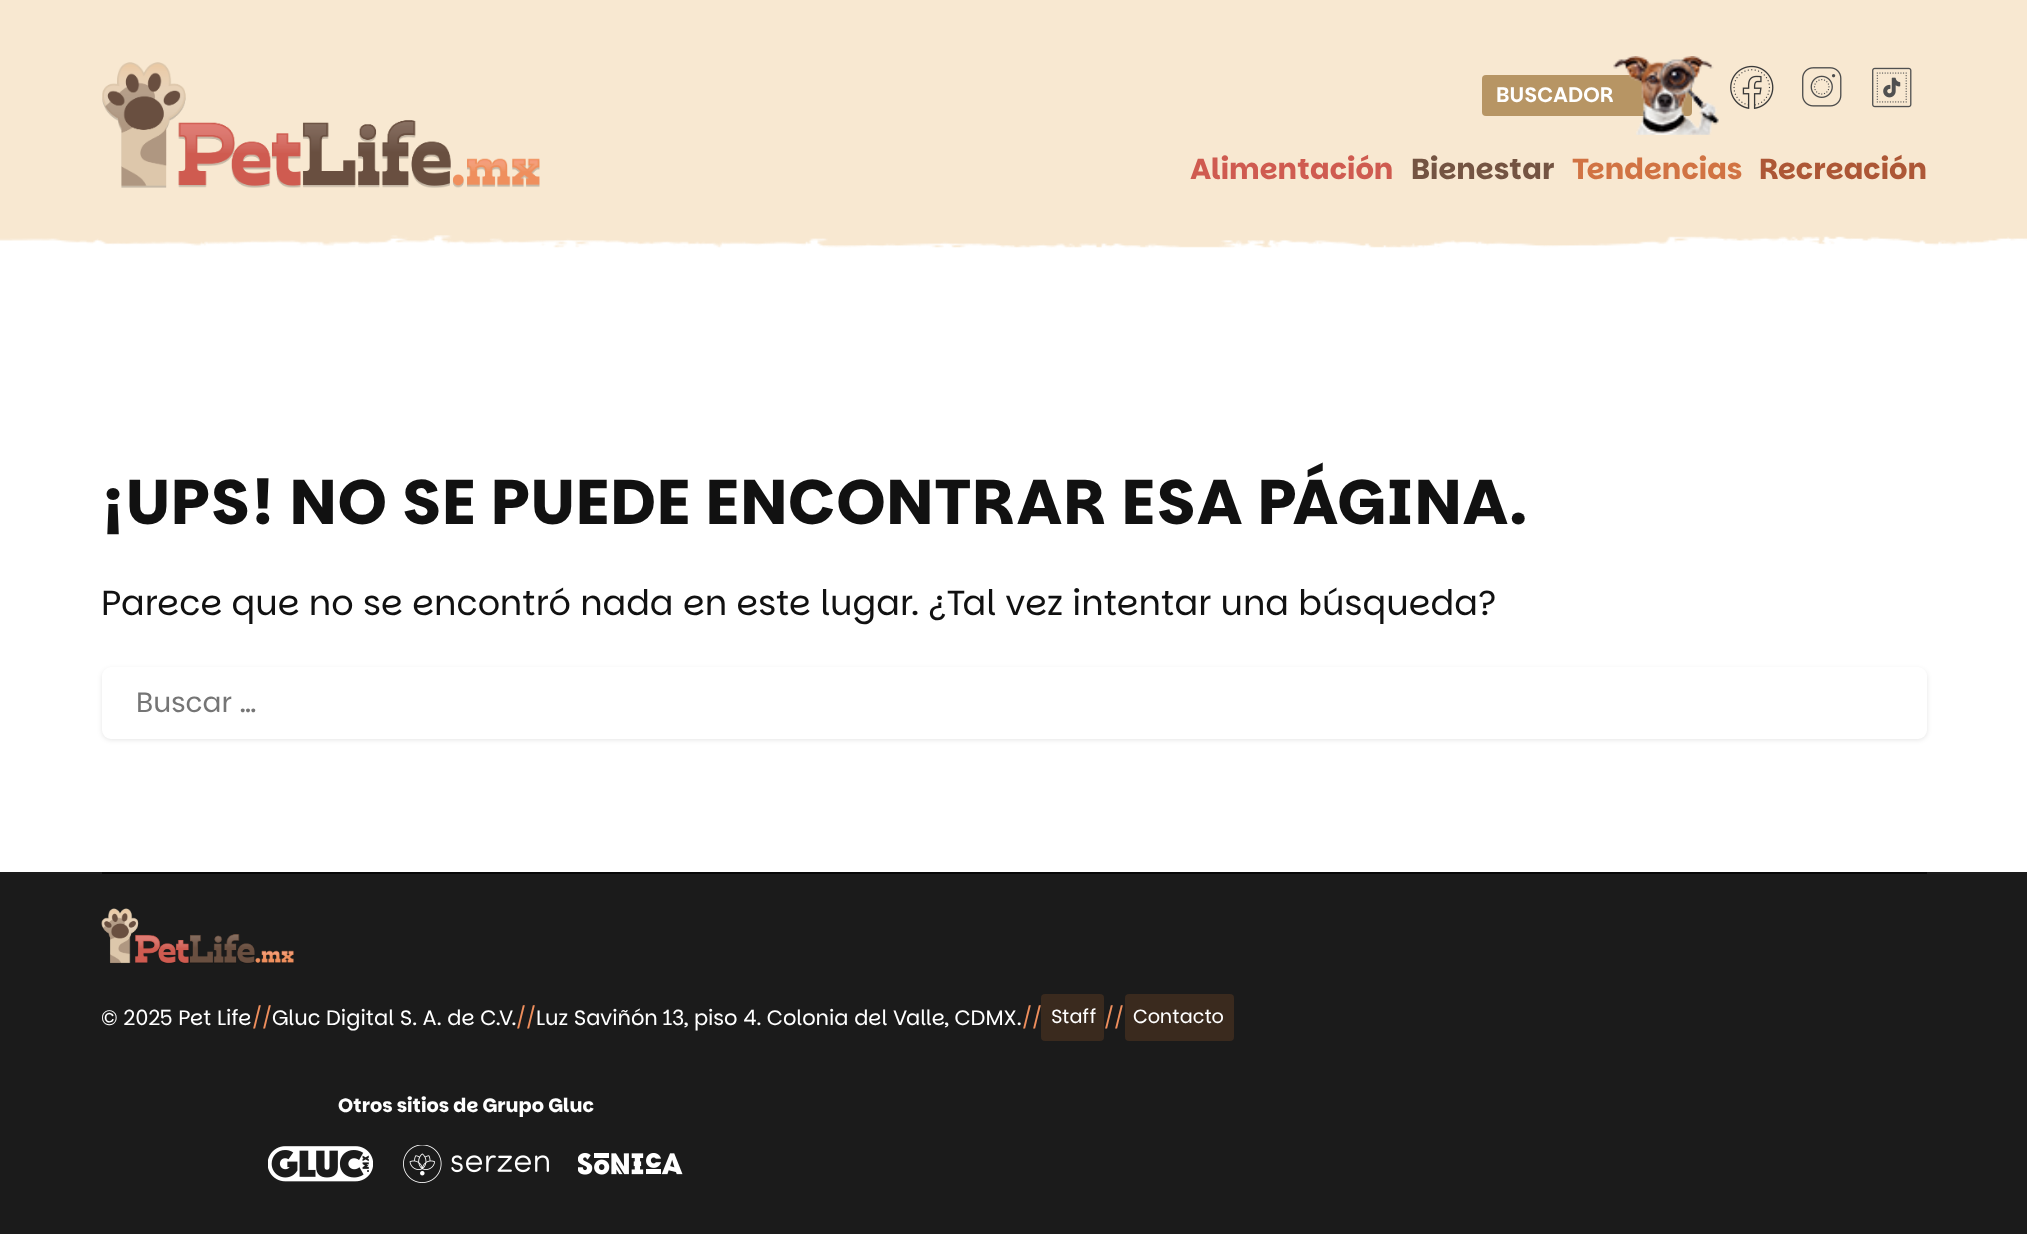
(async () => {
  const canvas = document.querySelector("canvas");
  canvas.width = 2027;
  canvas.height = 1234;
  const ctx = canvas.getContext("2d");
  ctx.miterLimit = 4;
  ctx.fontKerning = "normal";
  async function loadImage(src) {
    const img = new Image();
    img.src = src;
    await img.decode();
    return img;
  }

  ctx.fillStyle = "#ffffff";
  ctx.fillRect(0, 0, 2027, 1234);
  ctx.drawImage(await loadImage("img/1.png"), 0, 0, 2027, 248);
  ctx.drawImage(await loadImage("img/2.png"), 102, 62, 438, 126);
  ctx.fillStyle = "#b79564";
  ctx.beginPath();
  ctx.roundRect(1482, 75, 210, 41, 4);
  ctx.fill();
  ctx.drawImage(await loadImage("img/4.png"), 1730, 65, 44, 44);
  ctx.drawImage(await loadImage("img/5.png"), 1802, 67, 40, 40);
  ctx.drawImage(await loadImage("img/6.png"), 1872, 67, 40, 41);
  ctx.fillStyle = "rgba(0, 0, 0, 0.1)";
  ctx.filter = "blur(2.5px)";
  ctx.beginPath();
  ctx.roundRect(102, 669, 1825, 71, 9);
  ctx.fill();
  ctx.filter = "none";
  ctx.fillStyle = "#ffffff";
  ctx.beginPath();
  ctx.roundRect(102, 667, 1825, 72, 9);
  ctx.fill();
  ctx.fillStyle = "#1b1b1b";
  ctx.fillRect(0, 872, 2027, 362);
  ctx.fillStyle = "#070707";
  ctx.fillRect(102, 872, 1825, 2);
  ctx.drawImage(await loadImage("img/7.png"), 101, 908, 193, 56);
  ctx.fillStyle = "#3a2a1e";
  ctx.beginPath();
  ctx.roundRect(1041, 994, 63, 47, 4);
  ctx.fill();
  ctx.beginPath();
  ctx.roundRect(1125, 994, 109, 47, 4);
  ctx.fill();
  ctx.drawImage(await loadImage("img/8.png"), 268, 1146, 105, 36);
  ctx.drawImage(await loadImage("img/9.png"), 403, 1145, 146, 38);
  ctx.drawImage(await loadImage("img/10.png"), 578, 1153, 105, 22);
  ctx.font = "600 21px Parkinsans";
  ctx.fillStyle = "#ffffff";
  ctx.fillText("BUSCADOR", 1496, 102);
  ctx.drawImage(await loadImage("img/3.png"), 1613, 56, 106, 79);
  ctx.font = "bold 29px Parkinsans";
  ctx.fillStyle = "#cf5b50";
  ctx.fillText("Alimentación", 1190, 179);
  ctx.fillStyle = "#745442";
  ctx.fillText("Bienestar", 1411, 179);
  ctx.fillStyle = "#d17343";
  ctx.fillText("Tendencias", 1572, 179);
  ctx.fillStyle = "#ad5736";
  ctx.fillText("Recreación", 1759, 179);
  ctx.letterSpacing = "0.65px";
  ctx.font = "bold 63px Parkinsans";
  ctx.fillStyle = "#111111";
  ctx.fillText("¡UPS! NO SE PUEDE ENCONTRAR ESA PÁGINA.", 101, 524);
  ctx.letterSpacing = "0px";
  ctx.font = "35px Parkinsans";
  ctx.fillText("Parece que no se encontró nada en este lugar. ¿Tal vez intentar una búsqueda?", 101, 615);
  ctx.font = "28px Parkinsans";
  ctx.fillStyle = "#757575";
  ctx.fillText("Buscar …", 136, 712);
  ctx.font = "21px Parkinsans";
  ctx.fillStyle = "#ffffff";
  ctx.fillText("© 2025 Pet Life", 101, 1025);
  ctx.fillStyle = "#ef8f5d";
  ctx.fillText("//", 252, 1025);
  ctx.fillStyle = "#ffffff";
  ctx.fillText("Gluc Digital S. A. de C.V.", 272, 1025);
  ctx.fillStyle = "#ef8f5d";
  ctx.fillText("//", 516, 1025);
  ctx.fillStyle = "#ffffff";
  ctx.fillText("Luz Saviñón 13, piso 4. Colonia del Valle, CDMX.", 536, 1025);
  ctx.fillStyle = "#ef8f5d";
  ctx.fillText("//", 1022, 1025);
  ctx.font = "19.25px Parkinsans";
  ctx.fillStyle = "#ffffff";
  ctx.fillText("Staff", 1051, 1023);
  ctx.font = "21px Parkinsans";
  ctx.fillStyle = "#ef8f5d";
  ctx.fillText("//", 1104, 1025);
  ctx.font = "19.25px Parkinsans";
  ctx.fillStyle = "#ffffff";
  ctx.fillText("Contacto", 1133, 1023);
  ctx.font = "bold 19.25px Parkinsans";
  ctx.fillText("Otros sitios de Grupo Gluc", 338, 1112);
})();
